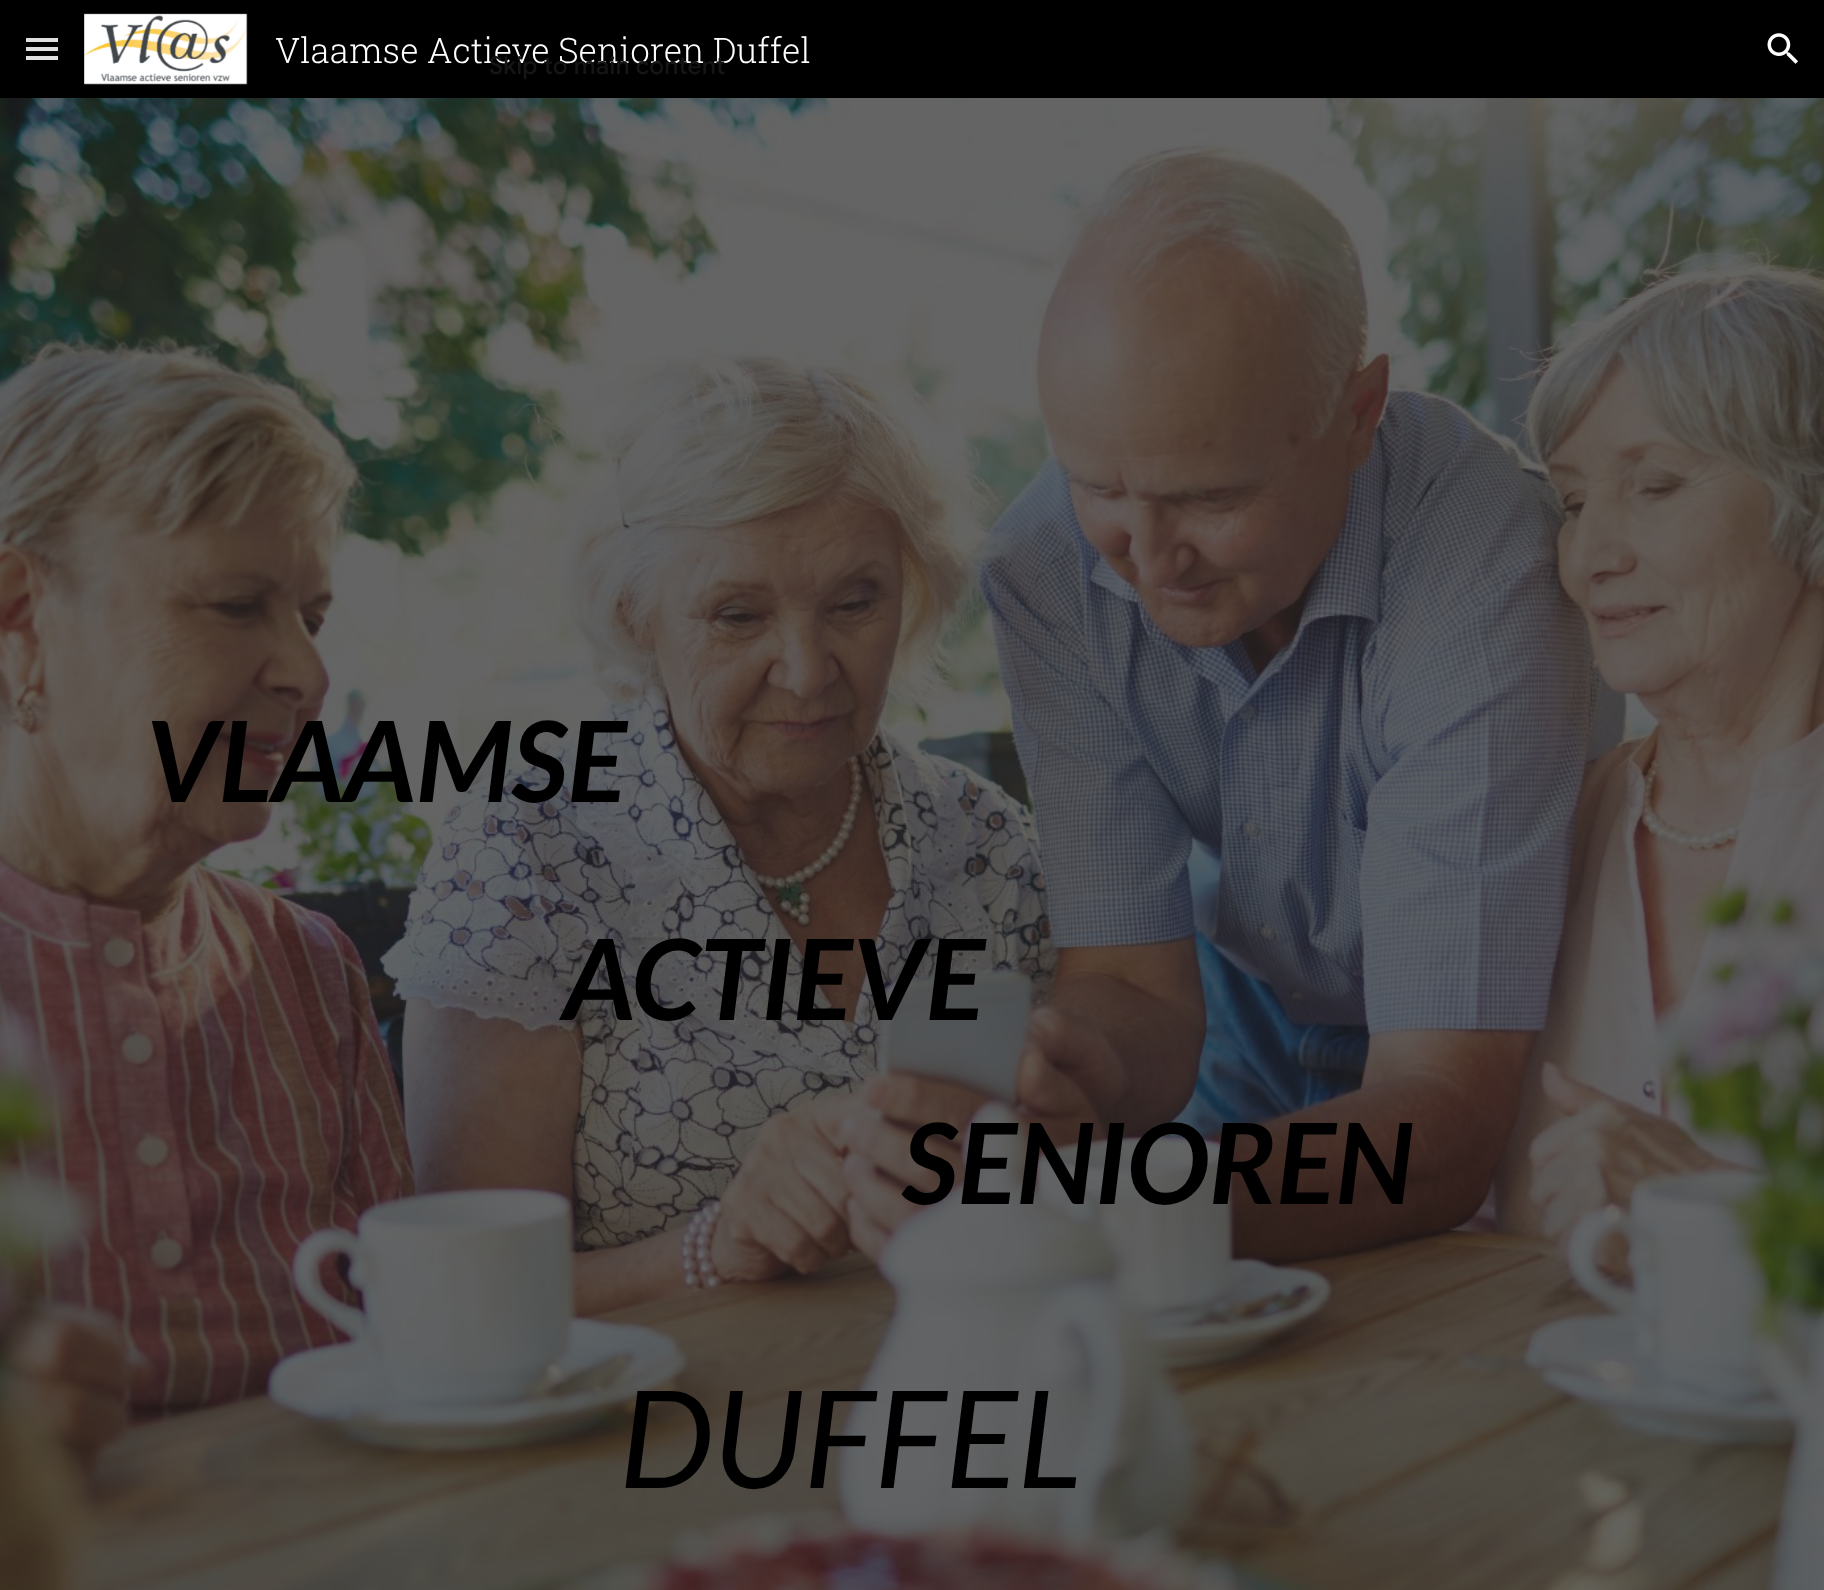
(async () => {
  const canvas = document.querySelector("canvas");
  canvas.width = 1824;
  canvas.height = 1590;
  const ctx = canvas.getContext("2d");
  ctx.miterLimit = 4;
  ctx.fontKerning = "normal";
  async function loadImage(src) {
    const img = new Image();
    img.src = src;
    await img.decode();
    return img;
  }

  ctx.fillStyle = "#ffffff";
  ctx.fillRect(0, 0, 1824, 1590);
  for (const [x, y, w, h, color] of [
    [0, 0, 1824, 98, "#000000"],
    [26, 38, 32, 4, "#dfdfdf"],
    [26, 47, 32, 4, "#dfdfdf"],
    [26, 56, 32, 4, "#dfdfdf"],
  ]) {
    ctx.fillStyle = color;
    ctx.fillRect(x, y, w, h);
  }
  ctx.drawImage(await loadImage("img/1.png"), 84, 13, 164, 72);
  ctx.drawImage(await loadImage("img/2.png"), 1767, 33, 31, 31);
  ctx.drawImage(await loadImage("img/3.png"), 0, 98, 1824, 1492);
  ctx.font = "300 35px Roboto Slab";
  ctx.fillStyle = "#ffffff";
  ctx.fillText("Vlaamse Actieve Senioren Duffel", 275, 63);
  ctx.font = "italic bold 112px Lato";
  ctx.fillStyle = "#000000";
  for (const [text, x, y] of [
    ["VLAAMSE", 145, 802],
    ["ACTIEVE", 563, 1020],
    ["SENIOREN", 902, 1204],
  ]) {
    ctx.fillText(text, x, y);
  }
  ctx.font = "italic 135.5px Lato";
  ctx.fillText("DUFFEL", 619, 1488);
  ctx.letterSpacing = "0.25px";
  ctx.font = "500 24.5px Google Sans";
  ctx.fillStyle = "#151515";
  ctx.fillText("Skip to main content", 489, 74);
})();
